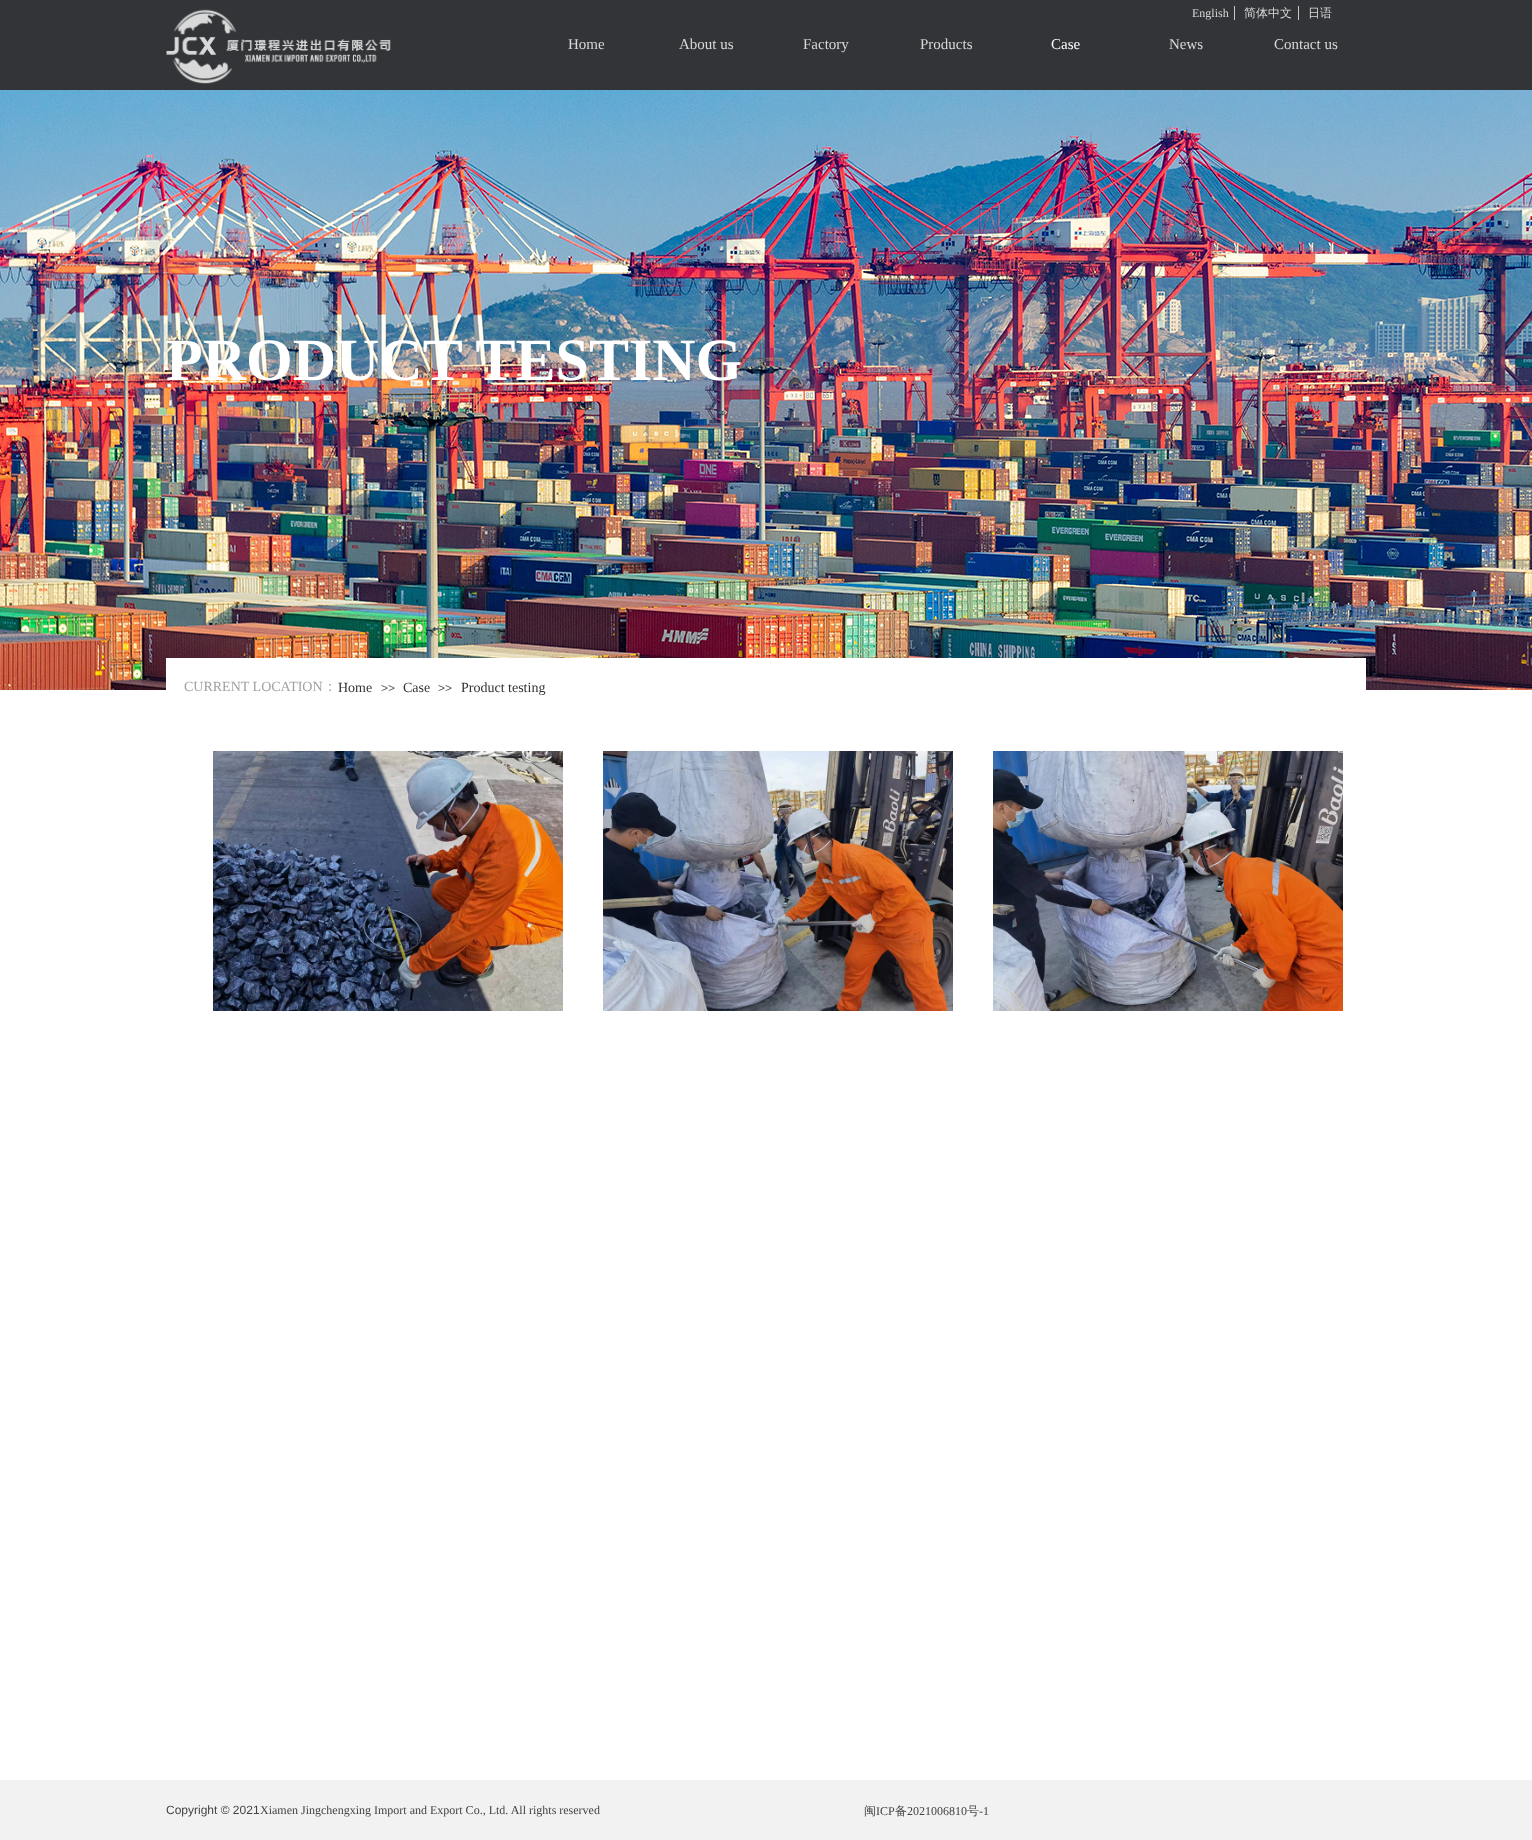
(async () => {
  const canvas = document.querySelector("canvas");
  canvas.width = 1532;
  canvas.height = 1840;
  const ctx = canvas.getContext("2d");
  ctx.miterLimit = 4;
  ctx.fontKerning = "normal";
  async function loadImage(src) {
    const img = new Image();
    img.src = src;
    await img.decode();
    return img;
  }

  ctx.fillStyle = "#ffffff";
  ctx.fillRect(0, 0, 1532, 1840);
  ctx.fillStyle = "#323437";
  ctx.fillRect(0, 0, 1532, 90);
  ctx.drawImage(await loadImage("img/1.png"), 166, 9, 225, 75);
  ctx.fillStyle = "#c6c6c6";
  ctx.fillRect(1234, 6, 1, 14);
  ctx.fillRect(1298, 6, 1, 14);
  ctx.drawImage(await loadImage("img/2.png"), 0, 90, 1532, 600);
  ctx.fillStyle = "#ffffff";
  ctx.fillRect(166, 658, 1200, 32);
  ctx.drawImage(await loadImage("img/3.png"), 213, 751, 350, 260);
  ctx.drawImage(await loadImage("img/4.png"), 603, 751, 350, 260);
  ctx.drawImage(await loadImage("img/5.png"), 993, 751, 350, 260);
  ctx.fillStyle = "#f2f2f2";
  ctx.fillRect(0, 1780, 1532, 60);
  ctx.font = "12px Liberation Serif";
  ctx.fillStyle = "#d9d9d9";
  ctx.fillText("English", 1192, 17);
  ctx.font = "500 12px WenQuanYi Zen Hei";
  ctx.fillText("简体中文", 1244, 17);
  ctx.fillText("日语", 1308, 17);
  ctx.font = "15px Liberation Serif";
  for (const [text, x, y] of [
    ["Home", 568, 49],
    ["About us", 679, 49],
    ["Factory", 803, 49],
    ["Products", 920, 49],
  ]) {
    ctx.fillText(text, x, y);
  }
  ctx.fillStyle = "#ffffff";
  ctx.fillText("Case", 1051, 49);
  ctx.fillStyle = "#d9d9d9";
  ctx.fillText("News", 1169, 49);
  ctx.fillText("Contact us", 1274, 49);
  ctx.font = "bold 60px Liberation Serif";
  ctx.fillStyle = "#ffffff";
  ctx.fillText("PRODUCT TESTING", 166, 380);
  ctx.font = "14px Liberation Serif";
  ctx.fillStyle = "#a1a1a1";
  ctx.fillText("CURRENT LOCATION", 184, 691);
  ctx.font = "500 14px WenQuanYi Zen Hei";
  ctx.fillText("：", 323, 691);
  ctx.font = "14px Liberation Serif";
  ctx.fillStyle = "#333333";
  ctx.fillText("Home", 338, 692);
  ctx.font = "12px Liberation Sans";
  ctx.fillStyle = "#5a5a5a";
  ctx.fillText(">>", 381, 692);
  ctx.font = "14px Liberation Serif";
  ctx.fillStyle = "#333333";
  ctx.fillText("Case", 403, 692);
  ctx.font = "12px Liberation Sans";
  ctx.fillStyle = "#5a5a5a";
  ctx.fillText(">>", 438, 692);
  ctx.font = "14px Liberation Serif";
  ctx.fillStyle = "#333333";
  ctx.fillText("Product testing", 461, 692);
  ctx.font = "12px Liberation Sans";
  ctx.fillStyle = "#444444";
  ctx.fillText("Copyright © 2021", 166, 1814);
  ctx.font = "12px Liberation Serif";
  ctx.fillText("Xiamen Jingchengxing Import and Export Co., Ltd. All rights reserved", 260, 1814);
  ctx.font = "500 12px WenQuanYi Zen Hei";
  ctx.fillText("闽", 864, 1815);
  ctx.font = "12px Liberation Serif";
  ctx.fillText("ICP", 876, 1815);
  ctx.font = "500 12px WenQuanYi Zen Hei";
  ctx.fillText("备", 895, 1815);
  ctx.font = "12px Liberation Serif";
  ctx.fillText("2021006810", 907, 1815);
  ctx.font = "500 12px WenQuanYi Zen Hei";
  ctx.fillText("号", 967, 1815);
  ctx.font = "12px Liberation Serif";
  ctx.fillText("-1", 979, 1815);
})();
